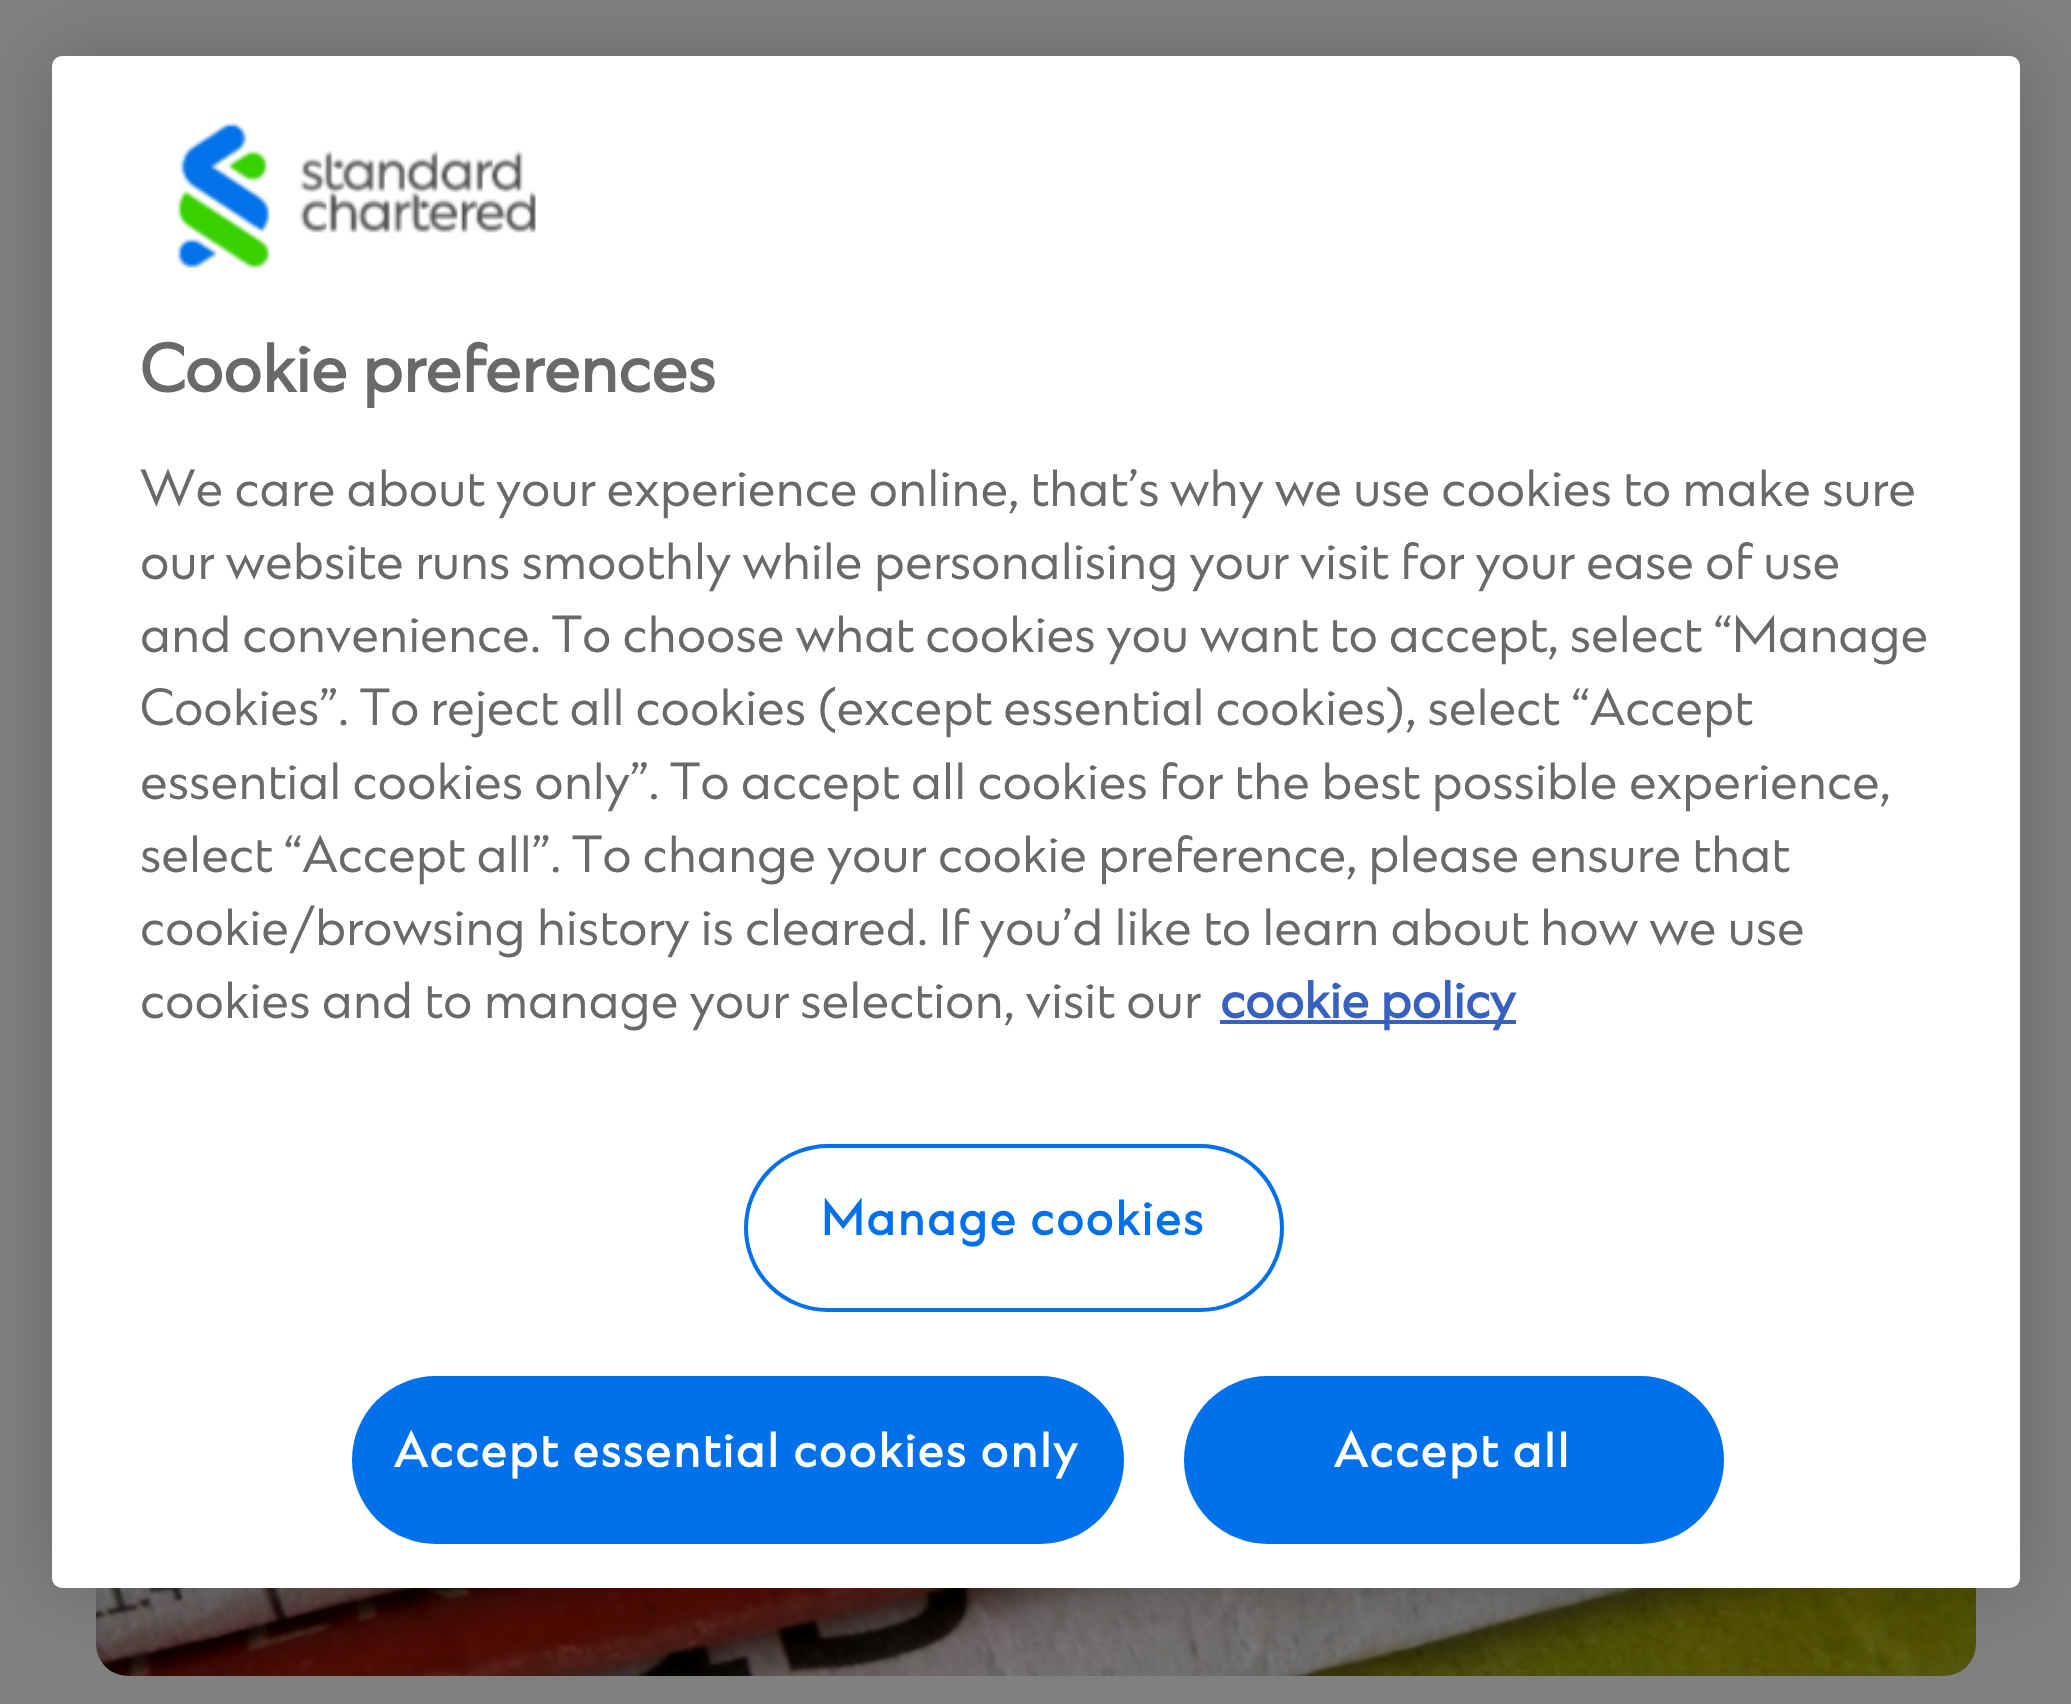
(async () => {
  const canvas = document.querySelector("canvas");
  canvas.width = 2071;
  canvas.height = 1704;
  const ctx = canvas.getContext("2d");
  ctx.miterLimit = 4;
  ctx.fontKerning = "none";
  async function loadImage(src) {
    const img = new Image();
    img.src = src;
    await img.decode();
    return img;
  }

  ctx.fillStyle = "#808080";
  ctx.fillRect(0, 0, 2071, 1704);
  ctx.drawImage(await loadImage("img/2.png"), 96, 1588, 1880, 88);
  ctx.fillStyle = "rgba(0, 0, 0, 0.2)";
  ctx.filter = "blur(36px)";
  ctx.beginPath();
  ctx.roundRect(52, 56, 1968, 1532, 10);
  ctx.fill();
  ctx.filter = "none";
  ctx.fillStyle = "#ffffff";
  ctx.beginPath();
  ctx.roundRect(52, 56, 1968, 1532, 10);
  ctx.fill();
  ctx.drawImage(await loadImage("img/1.png"), 177, 123, 359, 145);
  ctx.fillStyle = "#3860be";
  ctx.fillRect(1220, 1020, 296, 4);
  ctx.beginPath();
  ctx.roundRect(746, 1146, 536, 164, 82);
  ctx.strokeStyle = "#0070eb";
  ctx.lineWidth = 4;
  ctx.stroke();
  ctx.fillStyle = "#0070eb";
  ctx.beginPath();
  ctx.roundRect(354, 1378, 768, 164, 82);
  ctx.fill();
  ctx.stroke();
  ctx.beginPath();
  ctx.roundRect(1186, 1378, 536, 164, 82);
  ctx.fill();
  ctx.stroke();
  ctx.font = "bold 64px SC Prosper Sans";
  ctx.fillStyle = "#696969";
  ctx.fillText("Cookie preferences", 140, 392);
  ctx.wordSpacing = "-0.1px";
  ctx.font = "48.8px SC Prosper Sans";
  ctx.fillText("We care about your experience online, that’s", 140, 506);
  ctx.fillText("why we use cookies to make sure", 1170, 506);
  ctx.fillText("our website runs smoothly while personalising your visit for your ease of use", 140, 579);
  ctx.wordSpacing = "-0.25px";
  ctx.fillText("and convenience. To choose what cookies you", 140, 652);
  ctx.fillText("want to accept, select “Manage", 1200, 652);
  ctx.fillText("Cookies”. To", 140, 725);
  ctx.fillText("reject all cookies (except essential cookies), select “Accept", 430, 725);
  ctx.wordSpacing = "0px";
  ctx.fillText("essential cookies only”.", 140, 799);
  ctx.fillText("To accept all cookies for the best possible experience,", 670, 799);
  ctx.wordSpacing = "-0.25px";
  ctx.fillText("select “Accept all”.", 140, 872);
  ctx.fillText("To change your", 572, 872);
  ctx.fillText("cookie preference, please ensure that", 938, 872);
  ctx.wordSpacing = "-0.1px";
  ctx.fillText("cookie/browsing history is cleared. If you’d like to learn about how we use", 140, 945);
  ctx.wordSpacing = "0px";
  ctx.fillText("cookies and to manage your selection, visit our", 140, 1018);
  ctx.font = "bold 48.8px SC Prosper Sans";
  ctx.fillStyle = "#3860be";
  ctx.fillText("cookie policy", 1220, 1018);
  ctx.letterSpacing = "2.25px";
  ctx.font = "bold 45.5px SC Prosper Sans";
  ctx.fillStyle = "#0070eb";
  ctx.fillText("Manage cookies", 821, 1235);
  ctx.fillStyle = "#ffffff";
  ctx.fillText("Accept essential cookies only", 394, 1467);
  ctx.fillText("Accept all", 1334, 1467);
})();
